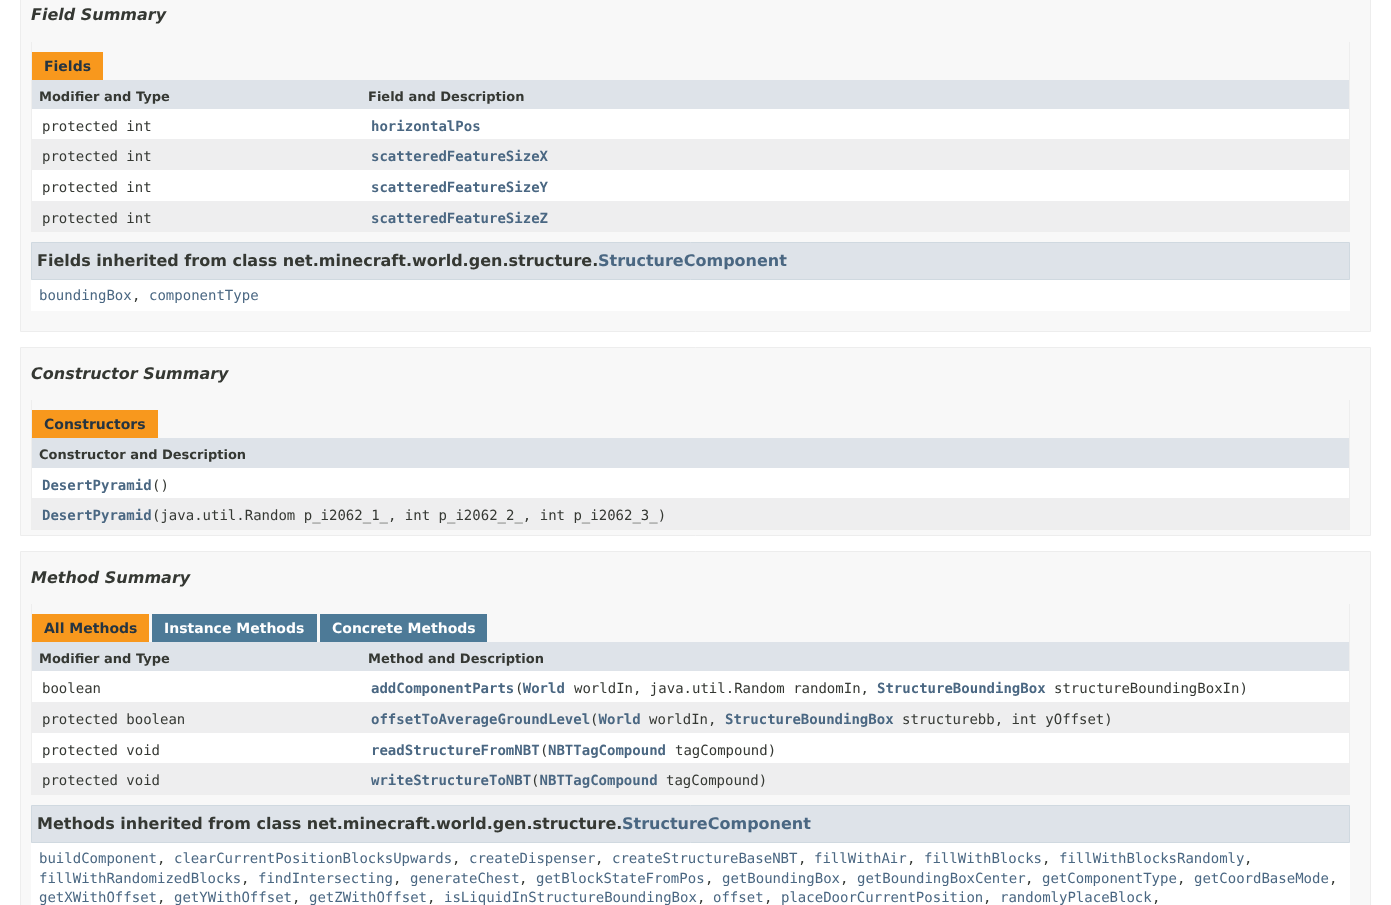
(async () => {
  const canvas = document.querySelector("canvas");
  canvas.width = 1391;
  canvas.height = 905;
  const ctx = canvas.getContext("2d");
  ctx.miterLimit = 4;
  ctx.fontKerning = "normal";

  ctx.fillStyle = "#ffffff";
  ctx.fillRect(0, 0, 1391, 905);
  ctx.fillStyle = "#f8f8f8";
  ctx.beginPath();
  ctx.rect(20.5, -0.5, 1350, 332);
  ctx.fill();
  ctx.strokeStyle = "#ededed";
  ctx.stroke();
  for (const [x, y, w, h, color] of [
    [1349, 42, 1, 190, "#eeeeee"],
    [31, 231, 1319, 1, "#eeeeee"],
    [31, 42, 1, 190, "#eeeeee"],
    [32, 52, 71, 28, "#f8981d"],
    [32, 80, 1317, 29, "#dee3e9"],
    [32, 109, 1317, 30, "#ffffff"],
    [32, 139, 1317, 31, "#eeeeef"],
    [32, 170, 1317, 31, "#ffffff"],
    [32, 201, 1317, 30, "#eeeeef"],
    [31, 280, 1319, 31, "#ffffff"],
  ]) {
    ctx.fillStyle = color;
    ctx.fillRect(x, y, w, h);
  }
  ctx.fillStyle = "#dee3e9";
  ctx.beginPath();
  ctx.rect(31.5, 242.5, 1318, 37);
  ctx.fill();
  ctx.strokeStyle = "#d0d9e0";
  ctx.stroke();
  ctx.fillStyle = "#f8f8f8";
  ctx.beginPath();
  ctx.rect(20.5, 347.5, 1350, 188);
  ctx.fill();
  ctx.strokeStyle = "#ededed";
  ctx.stroke();
  for (const [x, y, w, h, color] of [
    [1349, 400, 1, 130, "#eeeeee"],
    [31, 529, 1319, 1, "#eeeeee"],
    [31, 400, 1, 130, "#eeeeee"],
    [32, 410, 126, 28, "#f8981d"],
    [32, 438, 1317, 30, "#dee3e9"],
    [32, 468, 1317, 30, "#ffffff"],
    [32, 498, 1317, 31, "#eeeeef"],
  ]) {
    ctx.fillStyle = color;
    ctx.fillRect(x, y, w, h);
  }
  ctx.fillStyle = "#f8f8f8";
  ctx.beginPath();
  ctx.rect(20.5, 551.5, 1350, 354);
  ctx.fill();
  ctx.stroke();
  for (const [x, y, w, h, color] of [
    [1349, 604, 1, 191, "#eeeeee"],
    [31, 794, 1319, 1, "#eeeeee"],
    [31, 604, 1, 191, "#eeeeee"],
    [32, 614, 117, 28, "#f8981d"],
    [152, 614, 165, 28, "#4d7a97"],
    [320, 614, 167, 28, "#4d7a97"],
    [32, 642, 1317, 29, "#dee3e9"],
    [32, 671, 1317, 31, "#ffffff"],
    [32, 702, 1317, 31, "#eeeeef"],
    [32, 733, 1317, 30, "#ffffff"],
    [32, 763, 1317, 31, "#eeeeef"],
    [31, 843, 1319, 62, "#ffffff"],
  ]) {
    ctx.fillStyle = color;
    ctx.fillRect(x, y, w, h);
  }
  ctx.fillStyle = "#dee3e9";
  ctx.beginPath();
  ctx.rect(31.5, 805.5, 1318, 37);
  ctx.fill();
  ctx.strokeStyle = "#d0d9e0";
  ctx.stroke();
  ctx.font = "italic bold 16px DejaVu Sans";
  ctx.fillStyle = "#353833";
  ctx.fillText("Field Summary", 31, 20);
  ctx.font = "bold 14px DejaVu Sans";
  ctx.fillStyle = "#253441";
  ctx.fillText("Fields", 44, 71);
  ctx.font = "bold 13px DejaVu Sans";
  ctx.fillStyle = "#353833";
  ctx.fillText("Modifier and Type", 39, 101);
  ctx.fillText("Field and Description", 368, 101);
  ctx.font = "14px DejaVu Sans Mono";
  ctx.fillText("protected int", 42, 131);
  ctx.font = "bold 14px DejaVu Sans Mono";
  ctx.fillStyle = "#4a6782";
  ctx.fillText("horizontalPos", 371, 131);
  ctx.font = "14px DejaVu Sans Mono";
  ctx.fillStyle = "#353833";
  ctx.fillText("protected int", 42, 161);
  ctx.font = "bold 14px DejaVu Sans Mono";
  ctx.fillStyle = "#4a6782";
  ctx.fillText("scatteredFeatureSizeX", 371, 161);
  ctx.font = "14px DejaVu Sans Mono";
  ctx.fillStyle = "#353833";
  ctx.fillText("protected int", 42, 192);
  ctx.font = "bold 14px DejaVu Sans Mono";
  ctx.fillStyle = "#4a6782";
  ctx.fillText("scatteredFeatureSizeY", 371, 192);
  ctx.font = "14px DejaVu Sans Mono";
  ctx.fillStyle = "#353833";
  ctx.fillText("protected int", 42, 223);
  ctx.font = "bold 14px DejaVu Sans Mono";
  ctx.fillStyle = "#4a6782";
  ctx.fillText("scatteredFeatureSizeZ", 371, 223);
  ctx.font = "bold 16px DejaVu Sans";
  ctx.fillStyle = "#353833";
  ctx.fillText("Fields inherited from class net.minecraft.world.gen.structure.", 37, 266);
  ctx.fillStyle = "#4a6782";
  ctx.fillText("StructureComponent", 598, 266);
  ctx.font = "14px DejaVu Sans Mono";
  ctx.fillText("boundingBox", 39, 300);
  ctx.fillStyle = "#353833";
  ctx.fillText(",", 132, 300);
  ctx.fillStyle = "#4a6782";
  ctx.fillText("componentType", 149, 300);
  ctx.font = "italic bold 16px DejaVu Sans";
  ctx.fillStyle = "#353833";
  ctx.fillText("Constructor Summary", 31, 379);
  ctx.font = "bold 14px DejaVu Sans";
  ctx.fillStyle = "#253441";
  ctx.fillText("Constructors", 44, 429);
  ctx.font = "bold 13px DejaVu Sans";
  ctx.fillStyle = "#353833";
  ctx.fillText("Constructor and Description", 39, 459);
  ctx.font = "bold 14px DejaVu Sans Mono";
  ctx.fillStyle = "#4a6782";
  ctx.fillText("DesertPyramid", 42, 490);
  ctx.font = "14px DejaVu Sans Mono";
  ctx.fillStyle = "#353833";
  ctx.fillText("()", 152, 490);
  ctx.font = "bold 14px DejaVu Sans Mono";
  ctx.fillStyle = "#4a6782";
  ctx.fillText("DesertPyramid", 42, 520);
  ctx.font = "14px DejaVu Sans Mono";
  ctx.fillStyle = "#353833";
  ctx.fillText("(java.util.Random p_i2062_1_, int p_i2062_2_, int p_i2062_3_)", 152, 520);
  ctx.font = "italic bold 16px DejaVu Sans";
  ctx.fillText("Method Summary", 31, 583);
  ctx.font = "bold 14px DejaVu Sans";
  ctx.fillStyle = "#253441";
  ctx.fillText("All Methods", 44, 633);
  ctx.fillStyle = "#ffffff";
  ctx.fillText("Instance Methods", 164, 633);
  ctx.fillText("Concrete Methods", 332, 633);
  ctx.font = "bold 13px DejaVu Sans";
  ctx.fillStyle = "#353833";
  ctx.fillText("Modifier and Type", 39, 663);
  ctx.fillText("Method and Description", 368, 663);
  ctx.font = "14px DejaVu Sans Mono";
  ctx.fillText("boolean", 42, 693);
  ctx.font = "bold 14px DejaVu Sans Mono";
  ctx.fillStyle = "#4a6782";
  ctx.fillText("addComponentParts World", 371, 693);
  ctx.fillText("StructureBoundingBox", 877, 693);
  ctx.font = "14px DejaVu Sans Mono";
  ctx.fillStyle = "#353833";
  for (const [text, x, y] of [
    ["(", 515, 693],
    ["worldIn, java.util.Random randomIn,", 574, 693],
    ["structureBoundingBoxIn)", 1054, 693],
    ["protected boolean", 42, 724],
  ]) {
    ctx.fillText(text, x, y);
  }
  ctx.font = "bold 14px DejaVu Sans Mono";
  ctx.fillStyle = "#4a6782";
  ctx.fillText("offsetToAverageGroundLevel World", 371, 724);
  ctx.fillText("StructureBoundingBox", 725, 724);
  ctx.font = "14px DejaVu Sans Mono";
  ctx.fillStyle = "#353833";
  for (const [text, x, y] of [
    ["(", 590, 724],
    ["worldIn,", 649, 724],
    ["structurebb, int yOffset)", 902, 724],
    ["protected void", 42, 755],
  ]) {
    ctx.fillText(text, x, y);
  }
  ctx.font = "bold 14px DejaVu Sans Mono";
  ctx.fillStyle = "#4a6782";
  ctx.fillText("readStructureFromNBT NBTTagCompound", 371, 755);
  ctx.font = "14px DejaVu Sans Mono";
  ctx.fillStyle = "#353833";
  for (const [text, x, y] of [
    ["(", 540, 755],
    ["tagCompound)", 675, 755],
    ["protected void", 42, 785],
  ]) {
    ctx.fillText(text, x, y);
  }
  ctx.font = "bold 14px DejaVu Sans Mono";
  ctx.fillStyle = "#4a6782";
  ctx.fillText("writeStructureToNBT NBTTagCompound", 371, 785);
  ctx.font = "14px DejaVu Sans Mono";
  ctx.fillStyle = "#353833";
  ctx.fillText("(", 531, 785);
  ctx.fillText("tagCompound)", 666, 785);
  ctx.font = "bold 16px DejaVu Sans";
  ctx.fillText("Methods inherited from class net.minecraft.world.gen.structure.", 37, 829);
  ctx.fillStyle = "#4a6782";
  ctx.fillText("StructureComponent", 622, 829);
  ctx.font = "14px DejaVu Sans Mono";
  ctx.fillText("buildComponent", 39, 863);
  ctx.fillStyle = "#353833";
  ctx.fillText(",", 157, 863);
  ctx.fillStyle = "#4a6782";
  ctx.fillText("clearCurrentPositionBlocksUpwards", 174, 863);
  ctx.fillStyle = "#353833";
  ctx.fillText(",", 452, 863);
  ctx.fillStyle = "#4a6782";
  ctx.fillText("createDispenser", 469, 863);
  ctx.fillStyle = "#353833";
  ctx.fillText(",", 595, 863);
  ctx.fillStyle = "#4a6782";
  ctx.fillText("createStructureBaseNBT", 612, 863);
  ctx.fillStyle = "#353833";
  ctx.fillText(",", 798, 863);
  ctx.fillStyle = "#4a6782";
  ctx.fillText("fillWithAir", 814, 863);
  ctx.fillStyle = "#353833";
  ctx.fillText(",", 907, 863);
  ctx.fillStyle = "#4a6782";
  ctx.fillText("fillWithBlocks", 924, 863);
  ctx.fillStyle = "#353833";
  ctx.fillText(",", 1042, 863);
  ctx.fillStyle = "#4a6782";
  ctx.fillText("fillWithBlocksRandomly", 1059, 863);
  ctx.fillStyle = "#353833";
  ctx.fillText(",", 1244, 863);
  ctx.fillStyle = "#4a6782";
  ctx.fillText("fillWithRandomizedBlocks", 39, 883);
  ctx.fillStyle = "#353833";
  ctx.fillText(",", 241, 883);
  ctx.fillStyle = "#4a6782";
  ctx.fillText("findIntersecting", 258, 883);
  ctx.fillStyle = "#353833";
  ctx.fillText(",", 393, 883);
  ctx.fillStyle = "#4a6782";
  ctx.fillText("generateChest", 410, 883);
  ctx.fillStyle = "#353833";
  ctx.fillText(",", 519, 883);
  ctx.fillStyle = "#4a6782";
  ctx.fillText("getBlockStateFromPos", 536, 883);
  ctx.fillStyle = "#353833";
  ctx.fillText(",", 705, 883);
  ctx.fillStyle = "#4a6782";
  ctx.fillText("getBoundingBox", 722, 883);
  ctx.fillStyle = "#353833";
  ctx.fillText(",", 840, 883);
  ctx.fillStyle = "#4a6782";
  ctx.fillText("getBoundingBoxCenter", 857, 883);
  ctx.fillStyle = "#353833";
  ctx.fillText(",", 1025, 883);
  ctx.fillStyle = "#4a6782";
  ctx.fillText("getComponentType", 1042, 883);
  ctx.fillStyle = "#353833";
  ctx.fillText(",", 1177, 883);
  ctx.fillStyle = "#4a6782";
  ctx.fillText("getCoordBaseMode", 1194, 883);
  ctx.fillStyle = "#353833";
  ctx.fillText(",", 1329, 883);
  ctx.fillStyle = "#4a6782";
  ctx.fillText("getXWithOffset", 39, 902);
  ctx.fillStyle = "#353833";
  ctx.fillText(",", 157, 902);
  ctx.fillStyle = "#4a6782";
  ctx.fillText("getYWithOffset", 174, 902);
  ctx.fillStyle = "#353833";
  ctx.fillText(",", 292, 902);
  ctx.fillStyle = "#4a6782";
  ctx.fillText("getZWithOffset", 309, 902);
  ctx.fillStyle = "#353833";
  ctx.fillText(",", 427, 902);
  ctx.fillStyle = "#4a6782";
  ctx.fillText("isLiquidInStructureBoundingBox", 444, 902);
  ctx.fillStyle = "#353833";
  ctx.fillText(",", 697, 902);
  ctx.fillStyle = "#4a6782";
  ctx.fillText("offset", 713, 902);
  ctx.fillStyle = "#353833";
  ctx.fillText(",", 764, 902);
  ctx.fillStyle = "#4a6782";
  ctx.fillText("placeDoorCurrentPosition", 781, 902);
  ctx.fillStyle = "#353833";
  ctx.fillText(",", 983, 902);
  ctx.fillStyle = "#4a6782";
  ctx.fillText("randomlyPlaceBlock", 1000, 902);
  ctx.fillStyle = "#353833";
  ctx.fillText(",", 1152, 902);
})();
